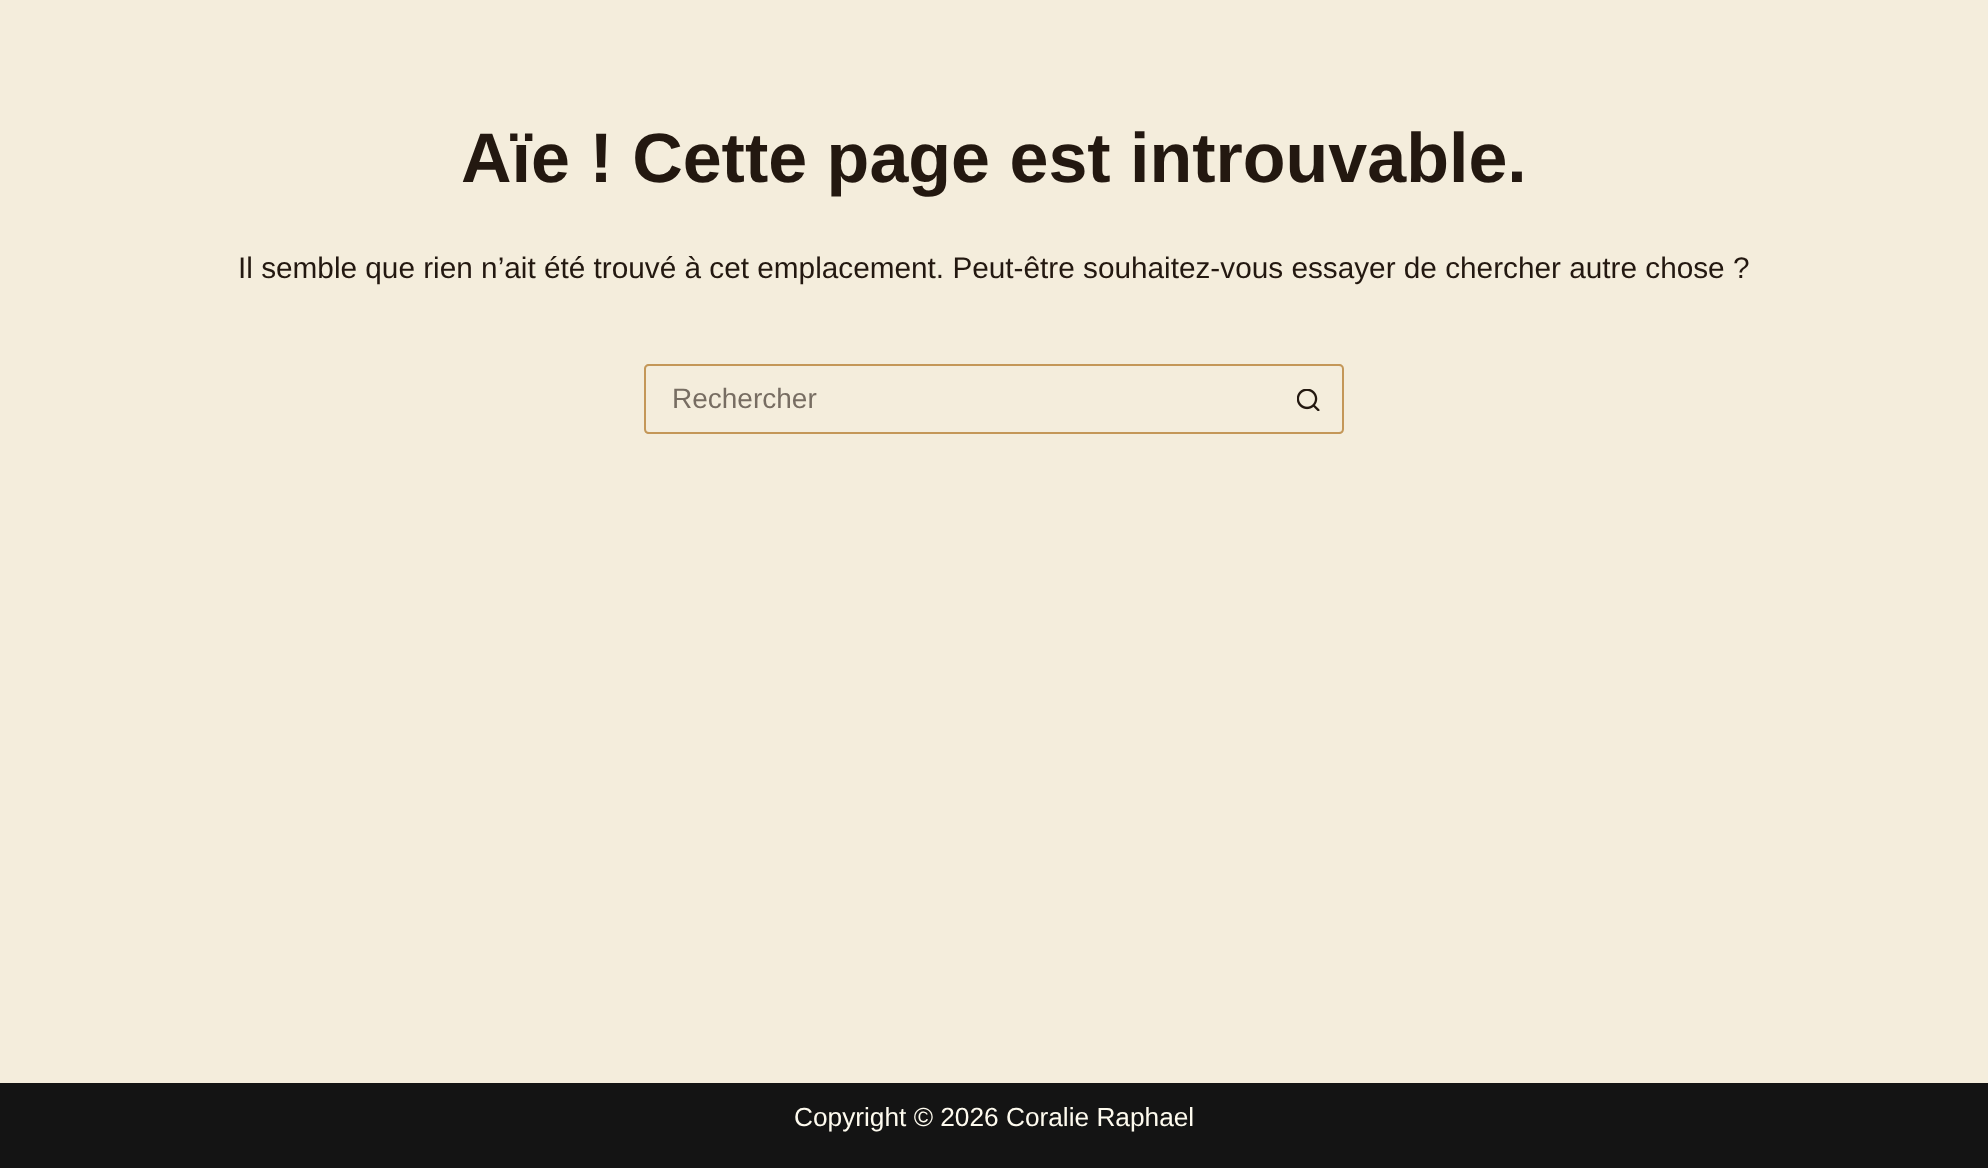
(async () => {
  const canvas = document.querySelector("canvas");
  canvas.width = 1988;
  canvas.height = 1168;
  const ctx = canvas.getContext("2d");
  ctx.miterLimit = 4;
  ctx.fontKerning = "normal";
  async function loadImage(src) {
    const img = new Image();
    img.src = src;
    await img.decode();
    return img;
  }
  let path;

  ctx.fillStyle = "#f4eddc";
  ctx.fillRect(0, 0, 1988, 1168);
  ctx.fillStyle = "#c49758";
  path = new Path2D("M649 364H1274V434H649C646 434 644 432 644 429V369C644 366 646 364 649 364ZM649 366H1274V432H649C647 432 646 431 646 429V369C646 367 647 366 649 366Z");
  ctx.fill(path, "evenodd");
  path = new Path2D("M1274 364H1339C1342 364 1344 366 1344 369V429C1344 432 1342 434 1339 434H1274ZM1274 366H1339C1341 366 1342 367 1342 369V429C1342 431 1341 432 1339 432H1274Z");
  ctx.fill(path, "evenodd");
  ctx.drawImage(await loadImage("img/1.png"), 1297, 389, 23, 22);
  ctx.fillStyle = "#141414";
  ctx.fillRect(0, 1083, 1988, 85);
  ctx.font = "bold 70px Liberation Sans";
  ctx.fillStyle = "#231810";
  ctx.fillText("Aïe ! Cette page est introuvable.", 461, 182);
  ctx.font = "29.75px Liberation Sans";
  ctx.fillText("Il semble que rien n’ait été trouvé à cet emplacement. Peut-être souhaitez-vous essayer de chercher autre chose ?", 238, 278);
  ctx.font = "28px Liberation Sans";
  ctx.fillStyle = "#776d62";
  ctx.fillText("Rechercher", 672, 408);
  ctx.font = "26.25px Liberation Sans";
  ctx.fillStyle = "#fefbef";
  ctx.fillText("Copyright © 2026 Coralie Raphael", 794, 1126);
})();
